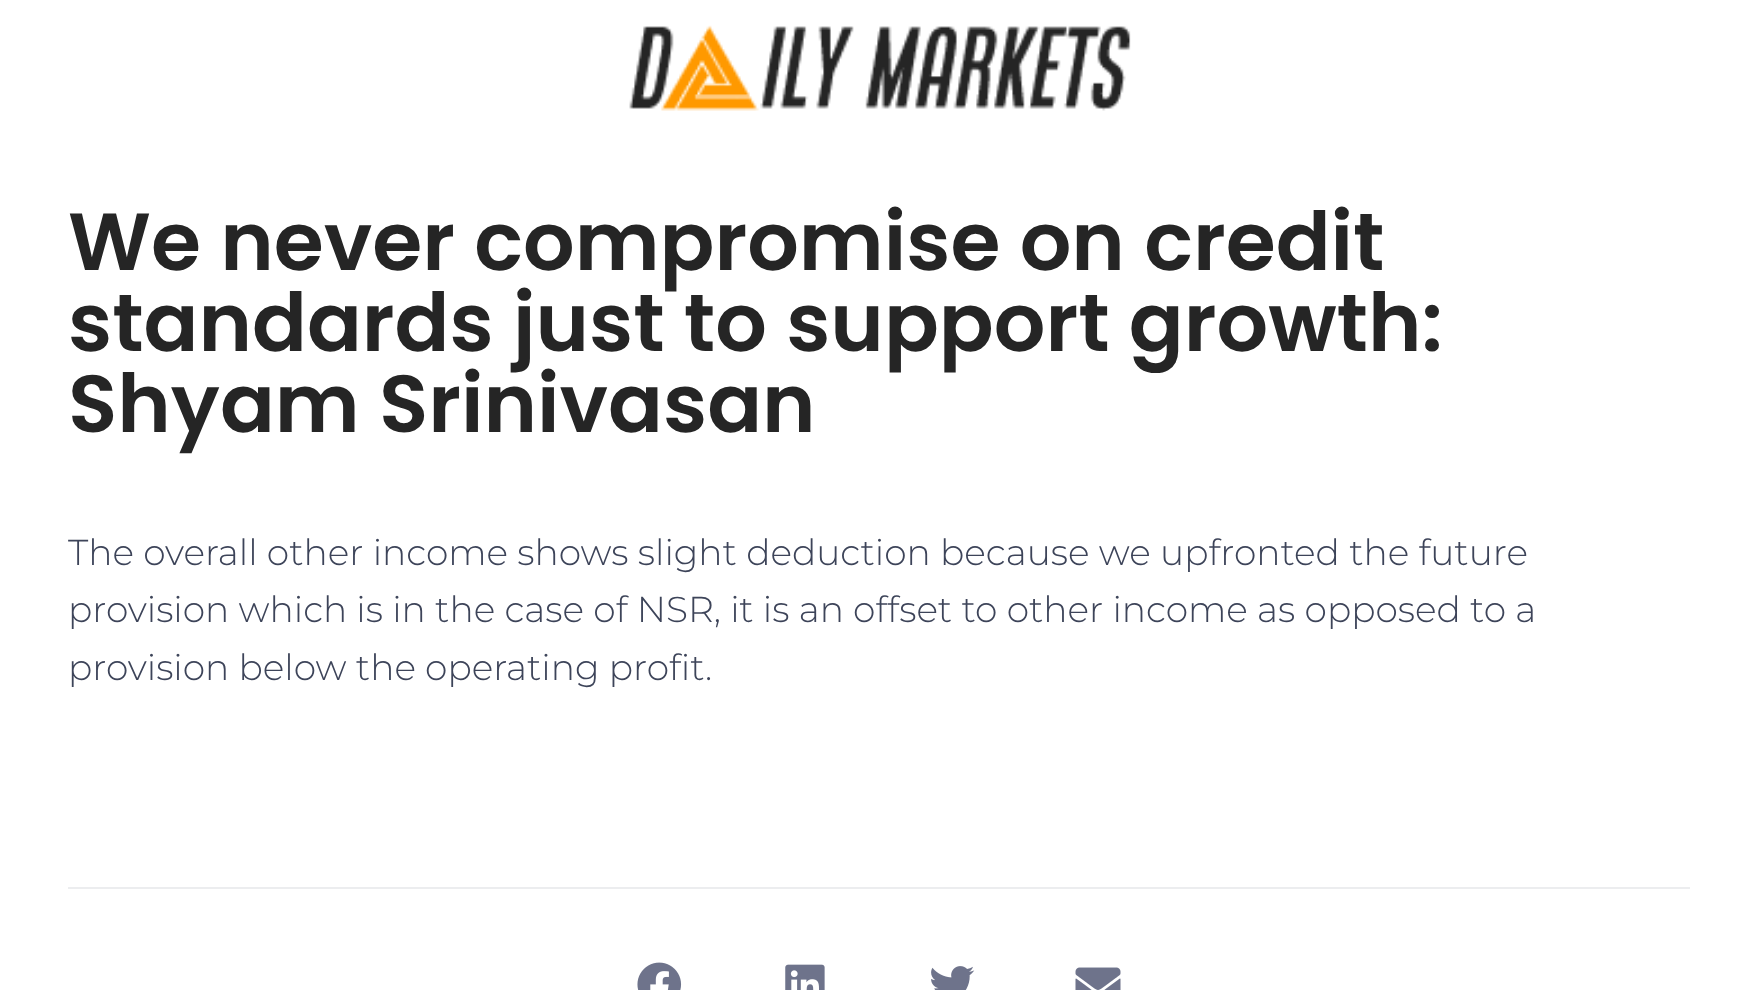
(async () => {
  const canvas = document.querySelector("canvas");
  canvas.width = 1756;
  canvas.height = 990;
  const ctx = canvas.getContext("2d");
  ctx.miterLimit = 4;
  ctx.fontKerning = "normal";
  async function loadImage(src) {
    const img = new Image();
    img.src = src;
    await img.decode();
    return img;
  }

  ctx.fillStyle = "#ffffff";
  ctx.fillRect(0, 0, 1756, 990);
  ctx.drawImage(await loadImage("img/1.png"), 629, 25, 502, 86);
  ctx.fillStyle = "#ecedef";
  ctx.fillRect(68, 887, 1622, 2);
  ctx.drawImage(await loadImage("img/2.png"), 637, 962, 45, 28);
  ctx.drawImage(await loadImage("img/3.png"), 785, 964, 40, 26);
  ctx.drawImage(await loadImage("img/4.png"), 931, 966, 44, 24);
  ctx.drawImage(await loadImage("img/5.png"), 1075, 967, 46, 23);
  ctx.font = "600 81px Poppins";
  ctx.fillStyle = "#252525";
  for (const [text, x, y] of [
    ["We never compromise on credit", 68, 270],
    ["standards just to support growth:", 68, 351],
    ["Shyam Srinivasan", 68, 432],
  ]) {
    ctx.fillText(text, x, y);
  }
  ctx.font = "300 36px Montserrat";
  ctx.fillStyle = "#3d4459";
  for (const [text, x, y] of [
    ["The overall other income shows slight deduction because we upfronted the future", 68, 565],
    ["provision which is in the case of NSR, it is an offset to other income as opposed to a", 68, 622],
    ["provision below the operating profit.", 68, 680],
  ]) {
    ctx.fillText(text, x, y);
  }
})();
